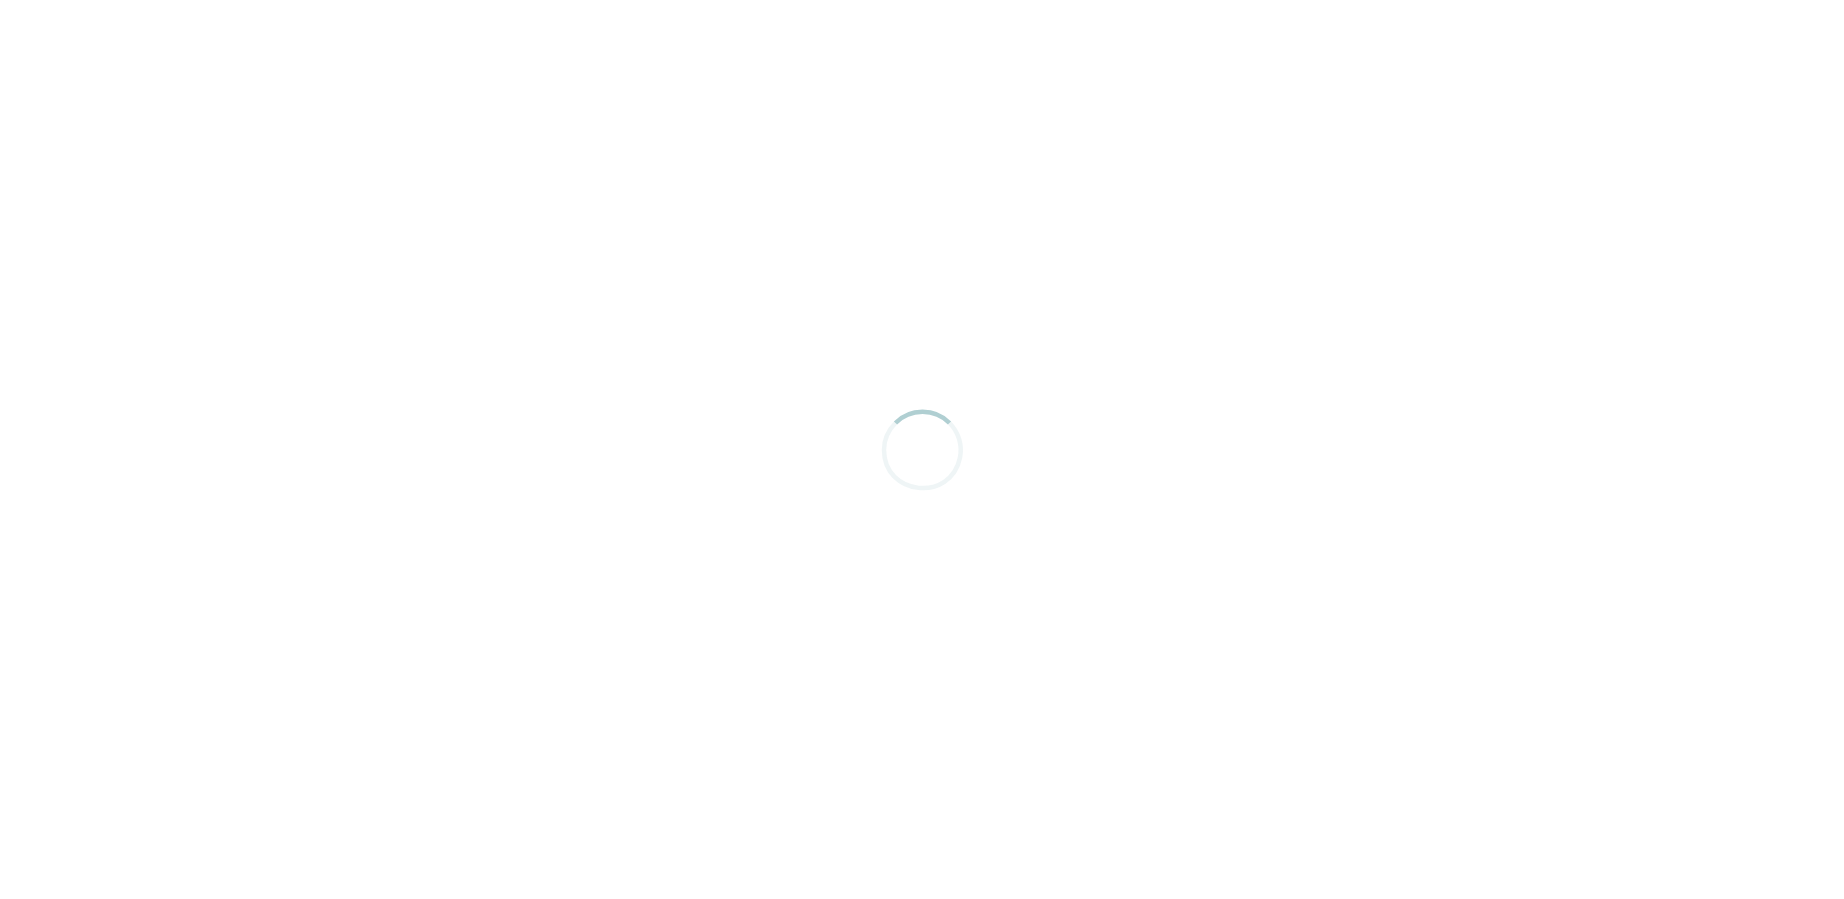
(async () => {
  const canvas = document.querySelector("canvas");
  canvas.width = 1844;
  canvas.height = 899;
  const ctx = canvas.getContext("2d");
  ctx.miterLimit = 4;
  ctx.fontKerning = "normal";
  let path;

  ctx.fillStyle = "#ffffff";
  ctx.fillRect(0, 0, 1844, 899);
  path = new Path2D("M895.5 423C910 408 935 408 949.5 423");
  ctx.strokeStyle = "#b0cfd2";
  ctx.lineWidth = 4.5;
  ctx.stroke(path);
  path = new Path2D("M949.5 423C958.5 432 962.5 445 960 457.5C951 502.5 884 496 884 450C884 440 888.5 430 895.5 423");
  ctx.strokeStyle = "rgba(176, 207, 210, 0.2)";
  ctx.stroke(path);
})();
